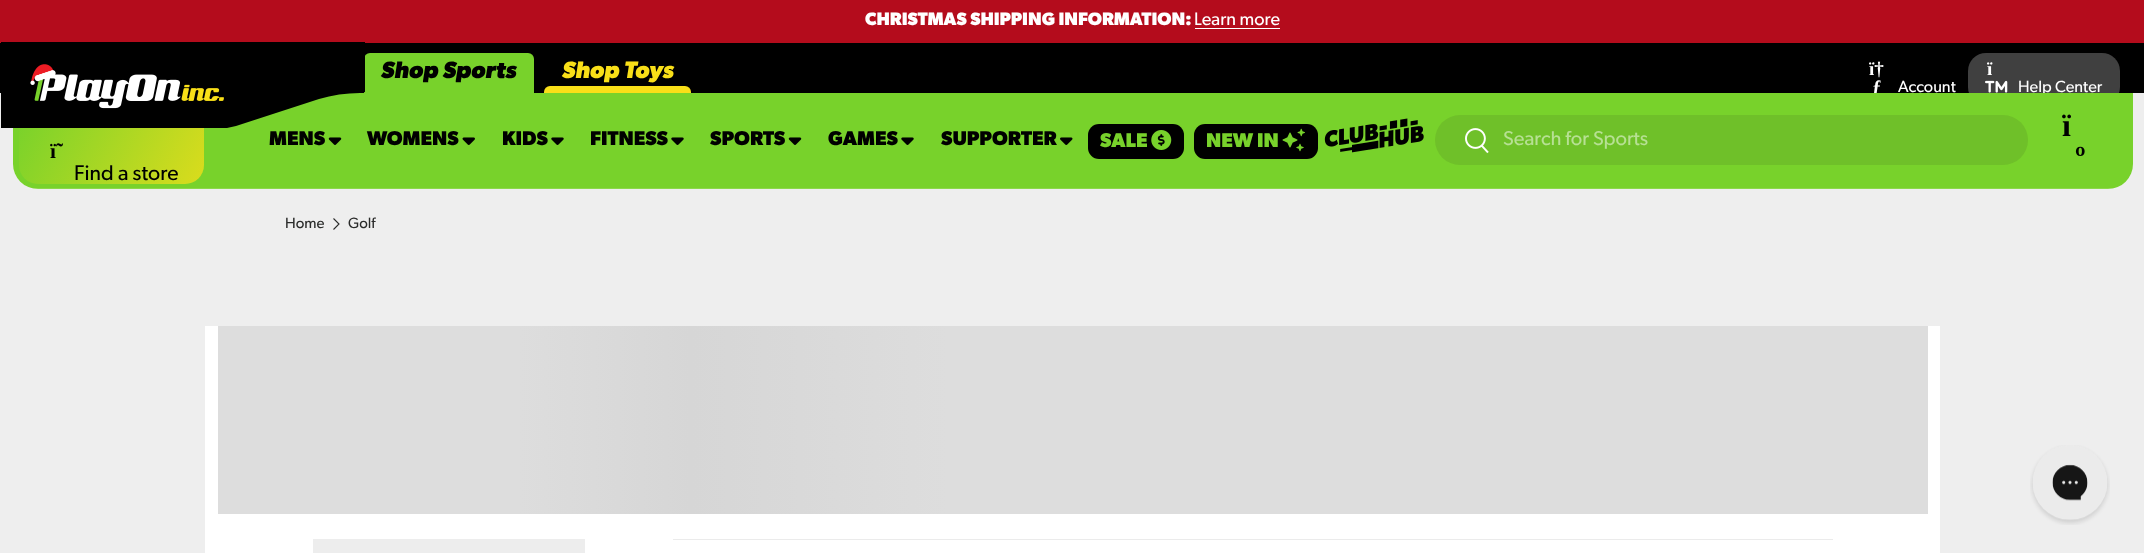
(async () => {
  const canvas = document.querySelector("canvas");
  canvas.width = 2144;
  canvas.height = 553;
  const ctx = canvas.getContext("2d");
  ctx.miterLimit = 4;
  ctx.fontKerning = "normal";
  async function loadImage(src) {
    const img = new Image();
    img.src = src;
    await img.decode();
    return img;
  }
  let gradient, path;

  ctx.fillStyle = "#eeeeee";
  ctx.fillRect(0, 0, 2144, 553);
  for (const [x, y, w, h, color] of [
    [0, 0, 2144, 43, "#b40c1c"],
    [1195, 28, 85, 1, "#ffffff"],
    [0, 43, 2144, 50, "#000000"],
  ]) {
    ctx.fillStyle = color;
    ctx.fillRect(x, y, w, h);
  }
  ctx.fillStyle = "#78d22b";
  ctx.beginPath();
  ctx.roundRect(364, 53, 170, 40, [6, 6, 0, 0]);
  ctx.fill();
  ctx.fillStyle = "#f9df18";
  ctx.beginPath();
  ctx.roundRect(544, 86, 147, 7, [6, 6, 0, 0]);
  ctx.fill();
  ctx.fillStyle = "#404040";
  ctx.beginPath();
  ctx.roundRect(1968, 53, 152, 52, 18);
  ctx.fill();
  ctx.drawImage(await loadImage("img/2.png"), 1985, 80, 23, 13);
  path = new Path2D("M333.5 218.5L339 224L333.5 229.5");
  ctx.strokeStyle = "#2a2b2a";
  ctx.lineWidth = 1.1;
  ctx.stroke(path);
  ctx.fillStyle = "#ffffff";
  ctx.fillRect(205, 326, 1735, 227);
  ctx.fillStyle = "#dddddd";
  ctx.fillRect(218, 326, 165, 188);
  gradient = ctx.createLinearGradient(383, 326, 2093, 326);
  gradient.addColorStop(0.08, "#dddddd");
  gradient.addColorStop(0.18, "#d6d6d6");
  gradient.addColorStop(0.33, "#dddddd");
  ctx.fillStyle = gradient;
  ctx.fillRect(383, 326, 1545, 188);
  ctx.fillStyle = "#ededed";
  ctx.fillRect(313, 539, 272, 14);
  ctx.fillStyle = "#ebebeb";
  ctx.fillRect(673, 539, 1160, 1);
  ctx.drawImage(await loadImage("img/11.png"), 2030, 445, 80, 80);
  ctx.font = "bold 18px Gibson";
  ctx.fillStyle = "#ffffff";
  ctx.fillText("CHRISTMAS SHIPPING INFORMATION:", 865, 25);
  ctx.font = "18px Gibson";
  ctx.fillText("Learn more", 1194, 25);
  ctx.font = "italic bold 23.75px Gibson";
  ctx.fillStyle = "#000000";
  ctx.fillText("Shop Sports", 381, 78);
  ctx.fillStyle = "#f9df18";
  ctx.fillText("Shop Toys", 562, 78);
  ctx.font = "bold 19px Liberation Serif";
  ctx.fillStyle = "#ffffff";
  ctx.fillText("ï†", 1869, 75);
  ctx.fillText("ƒ", 1872, 93);
  ctx.font = "16.25px Gibson";
  ctx.fillText("Account", 1898, 92);
  ctx.font = "bold 19px Liberation Serif";
  ctx.fillText("ï", 1987, 75);
  ctx.font = "16.25px Gibson";
  ctx.fillText("Help Center", 2018, 92);
  ctx.fillStyle = "#78d22b";
  ctx.beginPath();
  ctx.roundRect(13, 93, 2120, 96, [0, 0, 25, 25]);
  ctx.fill();
  ctx.fillStyle = "rgba(255, 255, 255, 0.15)";
  ctx.fillRect(25, 188, 2095, 1);
  ctx.font = "bold 20px Gibson";
  ctx.fillStyle = "#000000";
  ctx.fillText("MENS", 269, 145);
  ctx.drawImage(await loadImage("img/3.png"), 328, 137, 14, 8);
  ctx.fillText("WOMENS", 367, 145);
  ctx.drawImage(await loadImage("img/4.png"), 462, 137, 13, 8);
  ctx.fillText("KIDS", 502, 145);
  ctx.drawImage(await loadImage("img/5.png"), 551, 137, 13, 8);
  ctx.fillText("FITNESS", 590, 145);
  ctx.drawImage(await loadImage("img/5.png"), 671, 137, 13, 8);
  ctx.fillText("SPORTS", 710, 145);
  ctx.drawImage(await loadImage("img/3.png"), 788, 137, 14, 8);
  ctx.fillText("GAMES", 828, 145);
  ctx.drawImage(await loadImage("img/5.png"), 901, 137, 13, 8);
  ctx.fillText("SUPPORTER", 941, 145);
  ctx.drawImage(await loadImage("img/6.png"), 1060, 137, 13, 8);
  ctx.beginPath();
  ctx.roundRect(1088, 124, 96, 35, 11);
  ctx.fill();
  ctx.fillStyle = "#78d22b";
  ctx.fillText("SALE", 1100, 147);
  ctx.drawImage(await loadImage("img/7.png"), 1151, 130, 21, 20);
  ctx.fillStyle = "#000000";
  ctx.beginPath();
  ctx.roundRect(1194, 124, 124, 35, 11);
  ctx.fill();
  ctx.fillStyle = "#78d22b";
  ctx.fillText("NEW IN", 1206, 147);
  ctx.drawImage(await loadImage("img/8.png"), 1282, 128, 23, 24);
  ctx.drawImage(await loadImage("img/9.png"), 1324, 118, 100, 35);
  ctx.fillStyle = "#6fc029";
  ctx.beginPath();
  ctx.roundRect(1435, 115, 593, 50, 25);
  ctx.fill();
  ctx.drawImage(await loadImage("img/10.png"), 1465, 128, 24, 26);
  ctx.font = "20px Gibson";
  ctx.fillStyle = "#b7e094";
  ctx.fillText("Search for Sports", 1503, 145);
  ctx.font = "bold 32px Liberation Serif";
  ctx.fillStyle = "#000000";
  ctx.fillText("ï", 2062, 136);
  ctx.fillText("º", 2075, 168);
  gradient = ctx.createLinearGradient(1, 148, 224, 272);
  gradient.addColorStop(0, "#78d22b");
  gradient.addColorStop(1, "#f9df18");
  ctx.fillStyle = gradient;
  ctx.beginPath();
  ctx.roundRect(19, 116, 185, 68, [0, 0, 19, 19]);
  ctx.fill();
  ctx.fillStyle = "#000000";
  path = new Path2D("M365 92L360 93C346 93 332 95 319 99L236 126L227 128H1V42H365Z");
  ctx.fill(path);
  ctx.drawImage(await loadImage("img/1.png"), 30, 64, 194, 45);
  ctx.font = "bold 21.25px Liberation Serif";
  ctx.fillText("ï˜", 50, 158);
  ctx.font = "21.25px Gibson";
  ctx.fillText("Find a store", 74, 180);
  ctx.font = "15px Gibson";
  ctx.fillStyle = "#2a2b2a";
  ctx.fillText("Home", 285, 228);
  ctx.fillText("Golf", 348, 228);
})();
